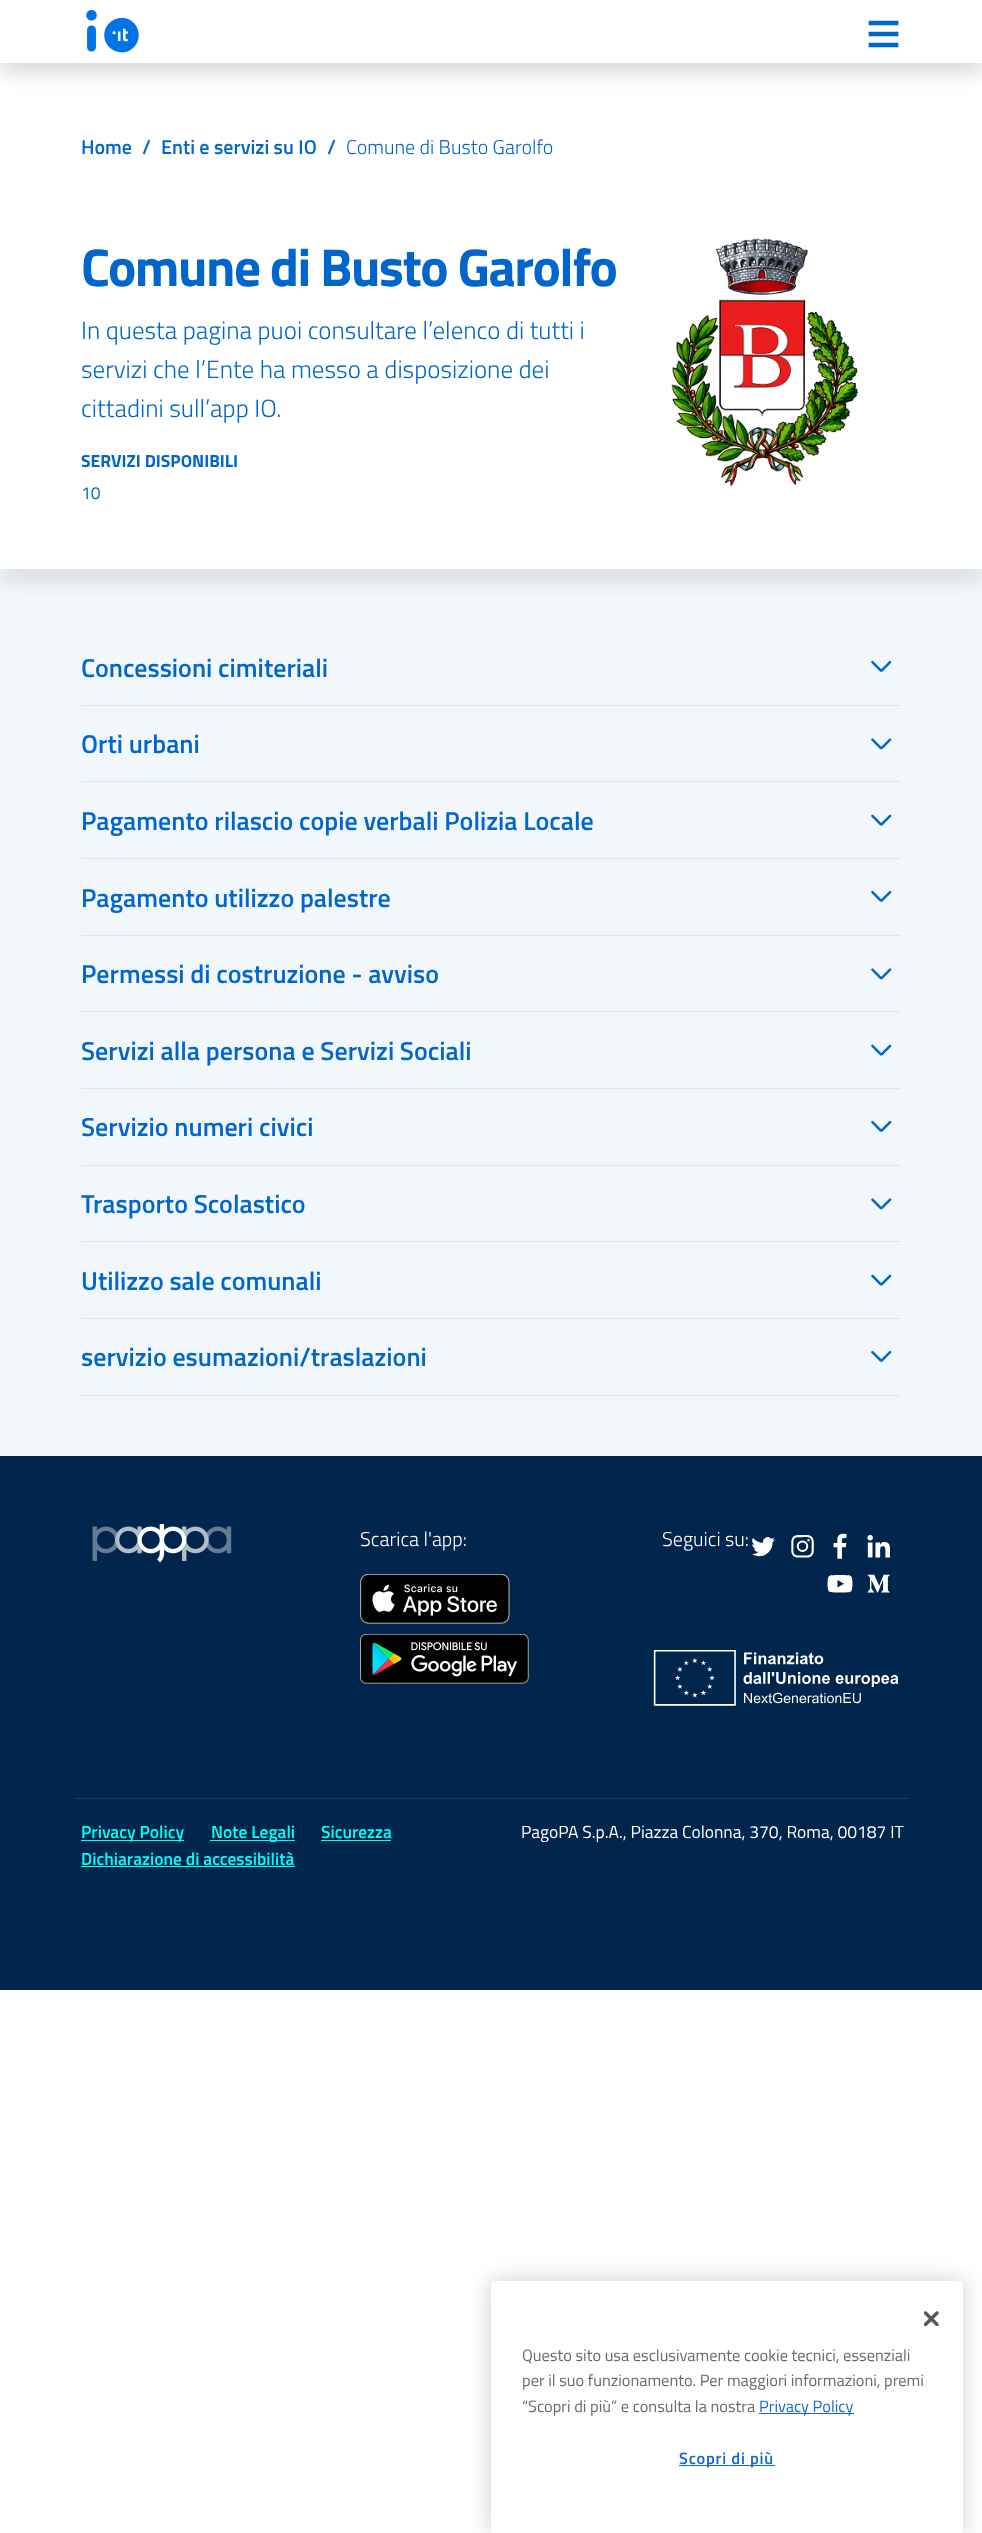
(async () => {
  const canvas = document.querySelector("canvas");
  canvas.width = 982;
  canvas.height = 2533;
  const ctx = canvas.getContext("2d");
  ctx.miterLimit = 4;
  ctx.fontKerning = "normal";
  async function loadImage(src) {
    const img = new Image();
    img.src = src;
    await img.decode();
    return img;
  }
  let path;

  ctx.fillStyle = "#ffffff";
  ctx.fillRect(0, 0, 982, 2533);
  ctx.fillStyle = "rgba(0, 0, 0, 0.15)";
  ctx.filter = "blur(10px)";
  ctx.beginPath();
  ctx.rect(0, 10, 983, 63);
  ctx.fill();
  ctx.filter = "none";
  ctx.fillStyle = "#ffffff";
  ctx.fillRect(0, 0, 982, 63);
  ctx.drawImage(await loadImage("img/1.png"), 86, 10, 53, 43);
  path = new Path2D("M871 23H896M871 34H896M871 45H896");
  ctx.strokeStyle = "#0066cc";
  ctx.lineWidth = 4.7;
  ctx.lineCap = "square";
  ctx.lineJoin = "round";
  ctx.stroke(path);
  ctx.drawImage(await loadImage("img/2.png"), 671, 238, 188, 249);
  ctx.fillStyle = "#f2f7fc";
  ctx.fillRect(0, 569, 982, 887);
  ctx.save();
  ctx.beginPath();
  ctx.rect(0, 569, 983, 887);
  ctx.clip();
  ctx.fillStyle = "rgba(0, 0, 0, 0.15)";
  ctx.filter = "blur(10px)";
  ctx.beginPath();
  ctx.rect(0, 566, 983, 13);
  ctx.fill();
  ctx.filter = "none";
  ctx.restore();
  ctx.fillStyle = "#e3e4e6";
  ctx.fillRect(81, 1395, 820, 1);
  ctx.drawImage(await loadImage("img/3.png"), 871, 660, 21, 12);
  ctx.fillRect(81, 705, 820, 1);
  ctx.drawImage(await loadImage("img/4.png"), 871, 738, 21, 12);
  ctx.fillRect(81, 781, 820, 1);
  ctx.drawImage(await loadImage("img/5.png"), 871, 814, 21, 12);
  ctx.fillRect(81, 858, 820, 1);
  ctx.drawImage(await loadImage("img/3.png"), 871, 890, 21, 12);
  ctx.fillRect(81, 935, 820, 1);
  ctx.drawImage(await loadImage("img/4.png"), 871, 968, 21, 12);
  ctx.fillRect(81, 1011, 820, 1);
  ctx.drawImage(await loadImage("img/5.png"), 871, 1044, 21, 12);
  ctx.fillRect(81, 1088, 820, 1);
  ctx.drawImage(await loadImage("img/3.png"), 871, 1120, 21, 12);
  ctx.fillRect(81, 1165, 820, 1);
  ctx.drawImage(await loadImage("img/4.png"), 871, 1198, 21, 12);
  ctx.fillRect(81, 1241, 820, 1);
  ctx.drawImage(await loadImage("img/5.png"), 871, 1274, 21, 12);
  ctx.fillRect(81, 1318, 820, 1);
  ctx.drawImage(await loadImage("img/3.png"), 871, 1350, 21, 12);
  ctx.fillStyle = "#00264d";
  ctx.fillRect(0, 1456, 982, 534);
  ctx.drawImage(await loadImage("img/6.png"), 92, 1524, 140, 39);
  ctx.drawImage(await loadImage("img/7.png"), 360, 1574, 150, 50);
  ctx.drawImage(await loadImage("img/8.png"), 360, 1634, 169, 50);
  ctx.drawImage(await loadImage("img/9.png"), 752, 1537, 23, 20);
  ctx.drawImage(await loadImage("img/10.png"), 791, 1535, 23, 23);
  ctx.drawImage(await loadImage("img/11.png"), 833, 1533, 14, 26);
  ctx.drawImage(await loadImage("img/12.png"), 867, 1535, 23, 23);
  ctx.drawImage(await loadImage("img/13.png"), 827, 1575, 26, 18);
  ctx.drawImage(await loadImage("img/14.png"), 867, 1574, 23, 19);
  ctx.drawImage(await loadImage("img/15.png"), 653, 1650, 246, 56);
  for (const [x, y, w, h, color] of [
    [74, 1798, 835, 1, "#1a3c5f"],
    [81, 1840, 103, 1, "#00fff8"],
    [210, 1840, 85, 1, "#00fff8"],
    [321, 1840, 70, 1, "#00fff8"],
    [81, 1866, 214, 1, "#00fff8"],
  ]) {
    ctx.fillStyle = color;
    ctx.fillRect(x, y, w, h);
  }
  ctx.fillStyle = "rgba(0, 0, 0, 0.2)";
  ctx.filter = "blur(11px)";
  ctx.beginPath();
  ctx.roundRect(491, 2281, 472, 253, 3);
  ctx.fill();
  ctx.filter = "none";
  ctx.fillStyle = "#ffffff";
  ctx.beginPath();
  ctx.roundRect(491, 2281, 472, 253, 3);
  ctx.fill();
  ctx.drawImage(await loadImage("img/16.png"), 924, 2311, 15, 15);
  ctx.fillStyle = "#1467ce";
  ctx.fillRect(759, 2413, 95, 1);
  ctx.fillRect(679, 2465, 96, 1);
  ctx.font = "600 20px Titillium Web";
  ctx.fillStyle = "#0066cc";
  for (const [text, x, y] of [
    ["Home", 81, 154],
    ["/", 142, 154],
    ["Enti e servizi su IO", 161, 154],
    ["/", 327, 154],
  ]) {
    ctx.fillText(text, x, y);
  }
  ctx.font = "300 20px Titillium Web";
  ctx.fillText("Comune di Busto Garolfo", 346, 154);
  ctx.letterSpacing = "-1.5px";
  ctx.font = "bold 53.25px Titillium Web";
  ctx.fillText("Comune di Busto Garolfo", 81, 286);
  ctx.letterSpacing = "0px";
  ctx.font = "300 25px Titillium Web";
  for (const [text, x, y] of [
    ["In questa pagina puoi consultare l’elenco di tutti i", 81, 339],
    ["servizi che l’Ente ha messo a disposizione dei", 81, 378],
    ["cittadini sull’app IO.", 81, 417],
  ]) {
    ctx.fillText(text, x, y);
  }
  ctx.font = "bold 17.5px Titillium Web";
  ctx.fillText("SERVIZI DISPONIBILI", 81, 467);
  ctx.font = "17.5px Titillium Web";
  ctx.fillText("10", 81, 499);
  ctx.font = "600 26px Titillium Web";
  for (const [text, x, y] of [
    ["Concessioni cimiteriali", 81, 677],
    ["Orti urbani", 81, 753],
    ["Pagamento rilascio copie verbali Polizia Locale", 81, 830],
    ["Pagamento utilizzo palestre", 81, 907],
    ["Permessi di costruzione - avviso", 81, 983],
    ["Servizi alla persona e Servizi Sociali", 81, 1060],
    ["Servizio numeri civici", 81, 1136],
    ["Trasporto Scolastico", 81, 1213],
    ["Utilizzo sale comunali", 81, 1290],
    ["servizio esumazioni/traslazioni", 81, 1366],
  ]) {
    ctx.fillText(text, x, y);
  }
  ctx.font = "300 20px Titillium Web";
  ctx.fillStyle = "#ffffff";
  ctx.fillText("Scarica l'app:", 360, 1546);
  ctx.fillText("Seguici su:", 662, 1546);
  ctx.font = "600 17.5px Titillium Web";
  ctx.fillStyle = "#00fff8";
  for (const [text, x, y] of [
    ["Privacy Policy", 81, 1838],
    ["Note Legali", 211, 1838],
    ["Sicurezza", 321, 1838],
    ["Dichiarazione di accessibilità", 81, 1865],
  ]) {
    ctx.fillText(text, x, y);
  }
  ctx.font = "17.5px Titillium Web";
  ctx.fillStyle = "#ffffff";
  ctx.fillText("PagoPA S.p.A., Piazza Colonna, 370, Roma, 00187 IT", 521, 1838);
  ctx.font = "16.4px Titillium Web";
  ctx.fillStyle = "#696969";
  for (const [text, x, y] of [
    ["Questo sito usa esclusivamente cookie tecnici, essenziali", 522, 2361],
    ["per il suo funzionamento. Per maggiori informazioni, premi", 522, 2386],
    ["“Scopri di più” e consulta la nostra", 522, 2412],
  ]) {
    ctx.fillText(text, x, y);
  }
  ctx.fillStyle = "#1467ce";
  ctx.fillText("Privacy Policy", 759, 2412);
  ctx.letterSpacing = "0.75px";
  ctx.font = "600 16.4px Titillium Web";
  ctx.fillText("Scopri di più", 679, 2464);
})();
